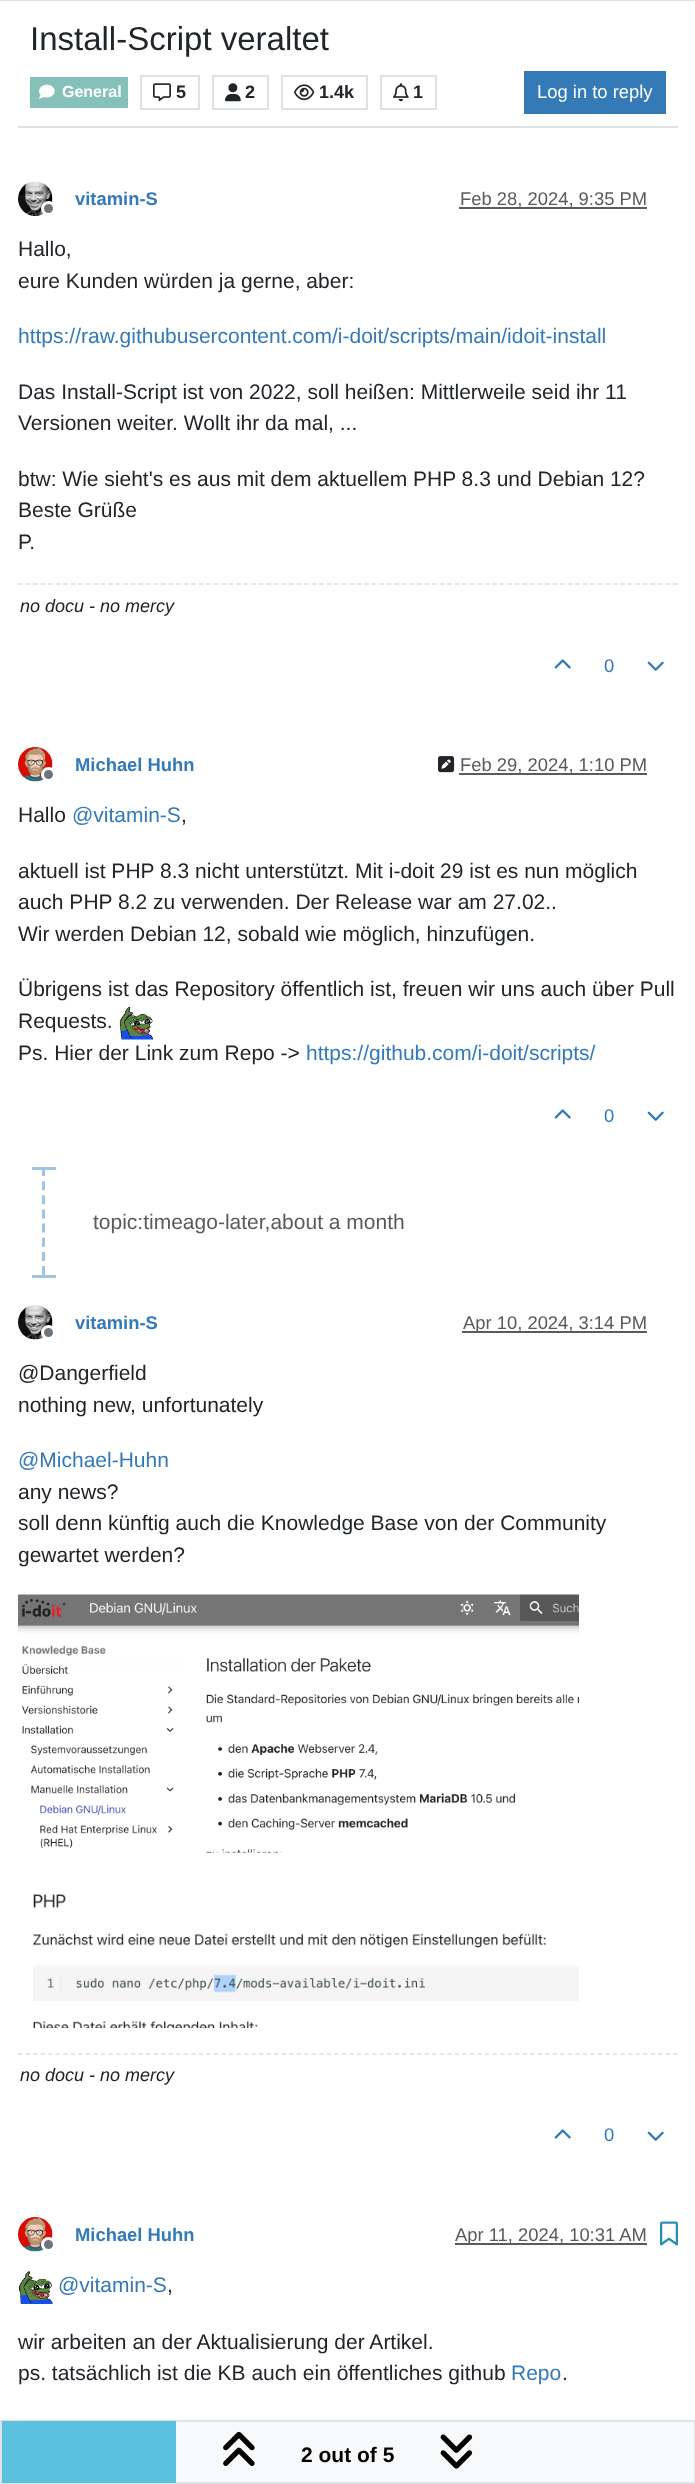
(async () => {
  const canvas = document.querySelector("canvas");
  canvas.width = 695;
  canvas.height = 2484;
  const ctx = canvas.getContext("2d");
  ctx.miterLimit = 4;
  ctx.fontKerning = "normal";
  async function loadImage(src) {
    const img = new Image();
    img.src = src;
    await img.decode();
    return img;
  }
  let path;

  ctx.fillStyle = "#ffffff";
  ctx.fillRect(0, 0, 695, 2484);
  for (const [x, y, w, h, color] of [
    [0, 0, 695, 1, "#dee2e6"],
    [18, 126, 660, 2, "#dee2e6"],
    [30, 77, 98, 31, "#86c1b9"],
  ]) {
    ctx.fillStyle = color;
    ctx.fillRect(x, y, w, h);
  }
  ctx.drawImage(await loadImage("img/1.png"), 39, 84, 16, 15);
  ctx.strokeStyle = "#dee2e6";
  ctx.lineWidth = 2;
  ctx.strokeRect(141, 76, 58, 33);
  ctx.drawImage(await loadImage("img/2.png"), 153, 83, 18, 19);
  ctx.strokeRect(213, 76, 55, 33);
  ctx.drawImage(await loadImage("img/3.png"), 225, 83, 16, 19);
  ctx.strokeRect(282, 76, 85, 33);
  ctx.drawImage(await loadImage("img/4.png"), 294, 84, 21, 17);
  ctx.strokeRect(381, 76, 55, 33);
  ctx.drawImage(await loadImage("img/5.png"), 393, 83, 16, 19);
  ctx.fillStyle = "#337ab7";
  ctx.fillRect(524, 71, 142, 43);
  ctx.drawImage(await loadImage("img/6.png"), 18, 181, 35, 35);
  ctx.fillStyle = "#6c757d";
  ctx.beginPath();
  ctx.arc(48.5, 208.5, 6, 0, Math.PI * 2);
  ctx.fill();
  ctx.strokeStyle = "#ffffff";
  ctx.lineWidth = 3;
  ctx.stroke();
  ctx.fillStyle = "#595c5f";
  ctx.fillRect(459, 207, 188, 2);
  path = new Path2D("M18 584H678");
  ctx.strokeStyle = "#dedede";
  ctx.lineWidth = 1.5;
  ctx.setLineDash([4.5, 3.03]);
  ctx.stroke(path);
  ctx.drawImage(await loadImage("img/7.png"), 554, 659, 17, 10);
  ctx.drawImage(await loadImage("img/8.png"), 647, 661, 17, 10);
  ctx.drawImage(await loadImage("img/9.png"), 18, 747, 35, 35);
  ctx.fillStyle = "#6c757d";
  ctx.beginPath();
  ctx.arc(48.5, 774.5, 6, 0, Math.PI * 2);
  ctx.fill();
  ctx.strokeStyle = "#ffffff";
  ctx.lineWidth = 3;
  ctx.setLineDash([]);
  ctx.stroke();
  ctx.drawImage(await loadImage("img/10.png"), 438, 756, 17, 17);
  ctx.fillStyle = "#595c5f";
  ctx.fillRect(459, 773, 188, 2);
  ctx.drawImage(await loadImage("img/11.png"), 119, 1007, 34, 33);
  ctx.drawImage(await loadImage("img/7.png"), 554, 1109, 17, 10);
  ctx.drawImage(await loadImage("img/8.png"), 647, 1111, 17, 10);
  path = new Path2D("M43.5 1167V1275");
  ctx.strokeStyle = "#a0c4e4";
  ctx.setLineDash([9, 5.15]);
  ctx.stroke(path);
  ctx.fillStyle = "#a0c4e4";
  ctx.fillRect(32, 1167, 24, 3);
  ctx.fillRect(32, 1275, 24, 3);
  ctx.drawImage(await loadImage("img/12.png"), 18, 1305, 35, 35);
  ctx.fillStyle = "#6c757d";
  ctx.beginPath();
  ctx.arc(48.5, 1332.5, 6, 0, Math.PI * 2);
  ctx.fill();
  ctx.strokeStyle = "#ffffff";
  ctx.setLineDash([]);
  ctx.stroke();
  ctx.fillStyle = "#595c5f";
  ctx.fillRect(462, 1331, 185, 2);
  ctx.drawImage(await loadImage("img/13.png"), 18, 1594, 561, 259);
  ctx.drawImage(await loadImage("img/14.png"), 33, 1894, 546, 134);
  path = new Path2D("M18 2054H678");
  ctx.strokeStyle = "#dedede";
  ctx.lineWidth = 1.5;
  ctx.setLineDash([4.5, 3.03]);
  ctx.stroke(path);
  ctx.drawImage(await loadImage("img/7.png"), 554, 2129, 17, 10);
  ctx.drawImage(await loadImage("img/8.png"), 647, 2131, 17, 10);
  ctx.drawImage(await loadImage("img/9.png"), 18, 2217, 35, 35);
  ctx.fillStyle = "#6c757d";
  ctx.beginPath();
  ctx.arc(48.5, 2244.5, 6, 0, Math.PI * 2);
  ctx.fill();
  ctx.strokeStyle = "#ffffff";
  ctx.lineWidth = 3;
  ctx.setLineDash([]);
  ctx.stroke();
  ctx.fillStyle = "#595c5f";
  ctx.fillRect(455, 2243, 192, 2);
  ctx.drawImage(await loadImage("img/15.png"), 660, 2221, 18, 25);
  ctx.drawImage(await loadImage("img/16.png"), 19, 2271, 34, 33);
  ctx.fillStyle = "#f8f9fa";
  ctx.fillRect(176, 2422, 518, 60);
  ctx.strokeStyle = "#dee2e6";
  ctx.lineWidth = 2;
  ctx.strokeRect(1, 2421, 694, 62);
  ctx.fillStyle = "#5bc0de";
  ctx.fillRect(2, 2421, 174, 62);
  ctx.drawImage(await loadImage("img/17.png"), 223, 2431, 32, 35);
  ctx.drawImage(await loadImage("img/18.png"), 440, 2434, 33, 35);
  ctx.font = "33px Liberation Sans";
  ctx.fillStyle = "#212529";
  ctx.fillText("Install-Script veraltet", 30, 50);
  ctx.font = "bold 16px Liberation Sans";
  ctx.fillStyle = "#ffffff";
  ctx.fillText("General", 62, 97);
  ctx.font = "bold 18px Liberation Sans";
  ctx.fillStyle = "#212529";
  for (const [text, x, y] of [
    ["5", 176, 98],
    ["2", 245, 98],
    ["1.4k", 319, 98],
    ["1", 413, 98],
  ]) {
    ctx.fillText(text, x, y);
  }
  ctx.font = "18.4px Liberation Sans";
  ctx.fillStyle = "#ffffff";
  ctx.fillText("Log in to reply", 537, 98);
  ctx.font = "bold 18.4px Liberation Sans";
  ctx.fillStyle = "#337ab7";
  ctx.fillText("vitamin-S", 75, 205);
  ctx.font = "18.4px Liberation Sans";
  ctx.fillStyle = "#585b5e";
  ctx.fillText("Feb 28, 2024, 9:35 PM", 460, 205);
  ctx.font = "21px Liberation Sans";
  ctx.fillStyle = "#212529";
  ctx.fillText("Hallo,", 18, 256);
  ctx.fillText("eure Kunden würden ja gerne, aber:", 18, 288);
  ctx.fillStyle = "#337ab7";
  ctx.fillText("https://raw.githubusercontent.com/i-doit/scripts/main/idoit-install", 18, 343);
  ctx.fillStyle = "#212529";
  for (const [text, x, y] of [
    ["Das Install-Script ist von 2022, soll heißen: Mittlerweile seid ihr 11", 18, 399],
    ["Versionen weiter. Wollt ihr da mal, ...", 18, 430],
    ["btw: Wie sieht's es aus mit dem aktuellem PHP 8.3 und Debian 12?", 18, 486],
    ["Beste Grüße", 18, 517],
    ["P.", 18, 549],
  ]) {
    ctx.fillText(text, x, y);
  }
  ctx.font = "italic 18px Liberation Sans";
  ctx.fillText("no docu - no mercy", 20, 612);
  ctx.font = "18.4px Liberation Sans";
  ctx.fillStyle = "#337ab7";
  ctx.fillText("0", 604, 672);
  ctx.font = "bold 18.4px Liberation Sans";
  ctx.fillText("Michael Huhn", 75, 771);
  ctx.font = "18.4px Liberation Sans";
  ctx.fillStyle = "#585b5e";
  ctx.fillText("Feb 29, 2024, 1:10 PM", 460, 771);
  ctx.font = "21px Liberation Sans";
  ctx.fillStyle = "#212529";
  ctx.fillText("Hallo", 18, 822);
  ctx.fillStyle = "#337ab7";
  ctx.fillText("@vitamin-S", 72, 822);
  ctx.fillStyle = "#212529";
  for (const [text, x, y] of [
    [",", 181, 822],
    ["aktuell ist PHP 8.3 nicht unterstützt. Mit i-doit 29 ist es nun möglich", 18, 878],
    ["auch PHP 8.2 zu verwenden. Der Release war am 27.02..", 18, 909],
    ["Wir werden Debian 12, sobald wie möglich, hinzufügen.", 18, 941],
    ["Übrigens ist das Repository öffentlich ist, freuen wir uns auch über Pull", 18, 996],
    ["Requests.", 18, 1028],
    ["Ps. Hier der Link zum Repo ->", 18, 1060],
  ]) {
    ctx.fillText(text, x, y);
  }
  ctx.fillStyle = "#337ab7";
  ctx.fillText("https://github.com/i-doit/scripts/", 306, 1060);
  ctx.font = "18.4px Liberation Sans";
  ctx.fillText("0", 604, 1122);
  ctx.font = "21px Liberation Sans";
  ctx.fillStyle = "#585b5e";
  ctx.fillText("topic:timeago-later,about a month", 93, 1229);
  ctx.font = "bold 18.4px Liberation Sans";
  ctx.fillStyle = "#337ab7";
  ctx.fillText("vitamin-S", 75, 1329);
  ctx.font = "18.4px Liberation Sans";
  ctx.fillStyle = "#585b5e";
  ctx.fillText("Apr 10, 2024, 3:14 PM", 463, 1329);
  ctx.font = "21px Liberation Sans";
  ctx.fillStyle = "#212529";
  ctx.fillText("@Dangerfield", 18, 1380);
  ctx.fillText("nothing new, unfortunately", 18, 1412);
  ctx.fillStyle = "#337ab7";
  ctx.fillText("@Michael-Huhn", 18, 1467);
  ctx.fillStyle = "#212529";
  for (const [text, x, y] of [
    ["any news?", 18, 1499],
    ["soll denn künftig auch die Knowledge Base von der Community", 18, 1530],
    ["gewartet werden?", 18, 1562],
  ]) {
    ctx.fillText(text, x, y);
  }
  ctx.font = "italic 18px Liberation Sans";
  ctx.fillText("no docu - no mercy", 20, 2081);
  ctx.font = "18.4px Liberation Sans";
  ctx.fillStyle = "#337ab7";
  ctx.fillText("0", 604, 2141);
  ctx.font = "bold 18.4px Liberation Sans";
  ctx.fillText("Michael Huhn", 75, 2241);
  ctx.font = "18.4px Liberation Sans";
  ctx.fillStyle = "#585b5e";
  ctx.fillText("Apr 11, 2024, 10:31 AM", 455, 2241);
  ctx.font = "21px Liberation Sans";
  ctx.fillStyle = "#337ab7";
  ctx.fillText("@vitamin-S", 58, 2292);
  ctx.fillStyle = "#212529";
  for (const [text, x, y] of [
    [",", 167, 2292],
    ["wir arbeiten an der Aktualisierung der Artikel.", 18, 2349],
    ["ps. tatsächlich ist die KB auch ein öffentliches github", 18, 2380],
  ]) {
    ctx.fillText(text, x, y);
  }
  ctx.fillStyle = "#337ab7";
  ctx.fillText("Repo", 511, 2380);
  ctx.fillStyle = "#212529";
  ctx.fillText(".", 562, 2380);
  ctx.font = "bold 21px Liberation Sans";
  ctx.fillStyle = "#000000";
  ctx.fillText("2 out of 5", 301, 2462);
})();
